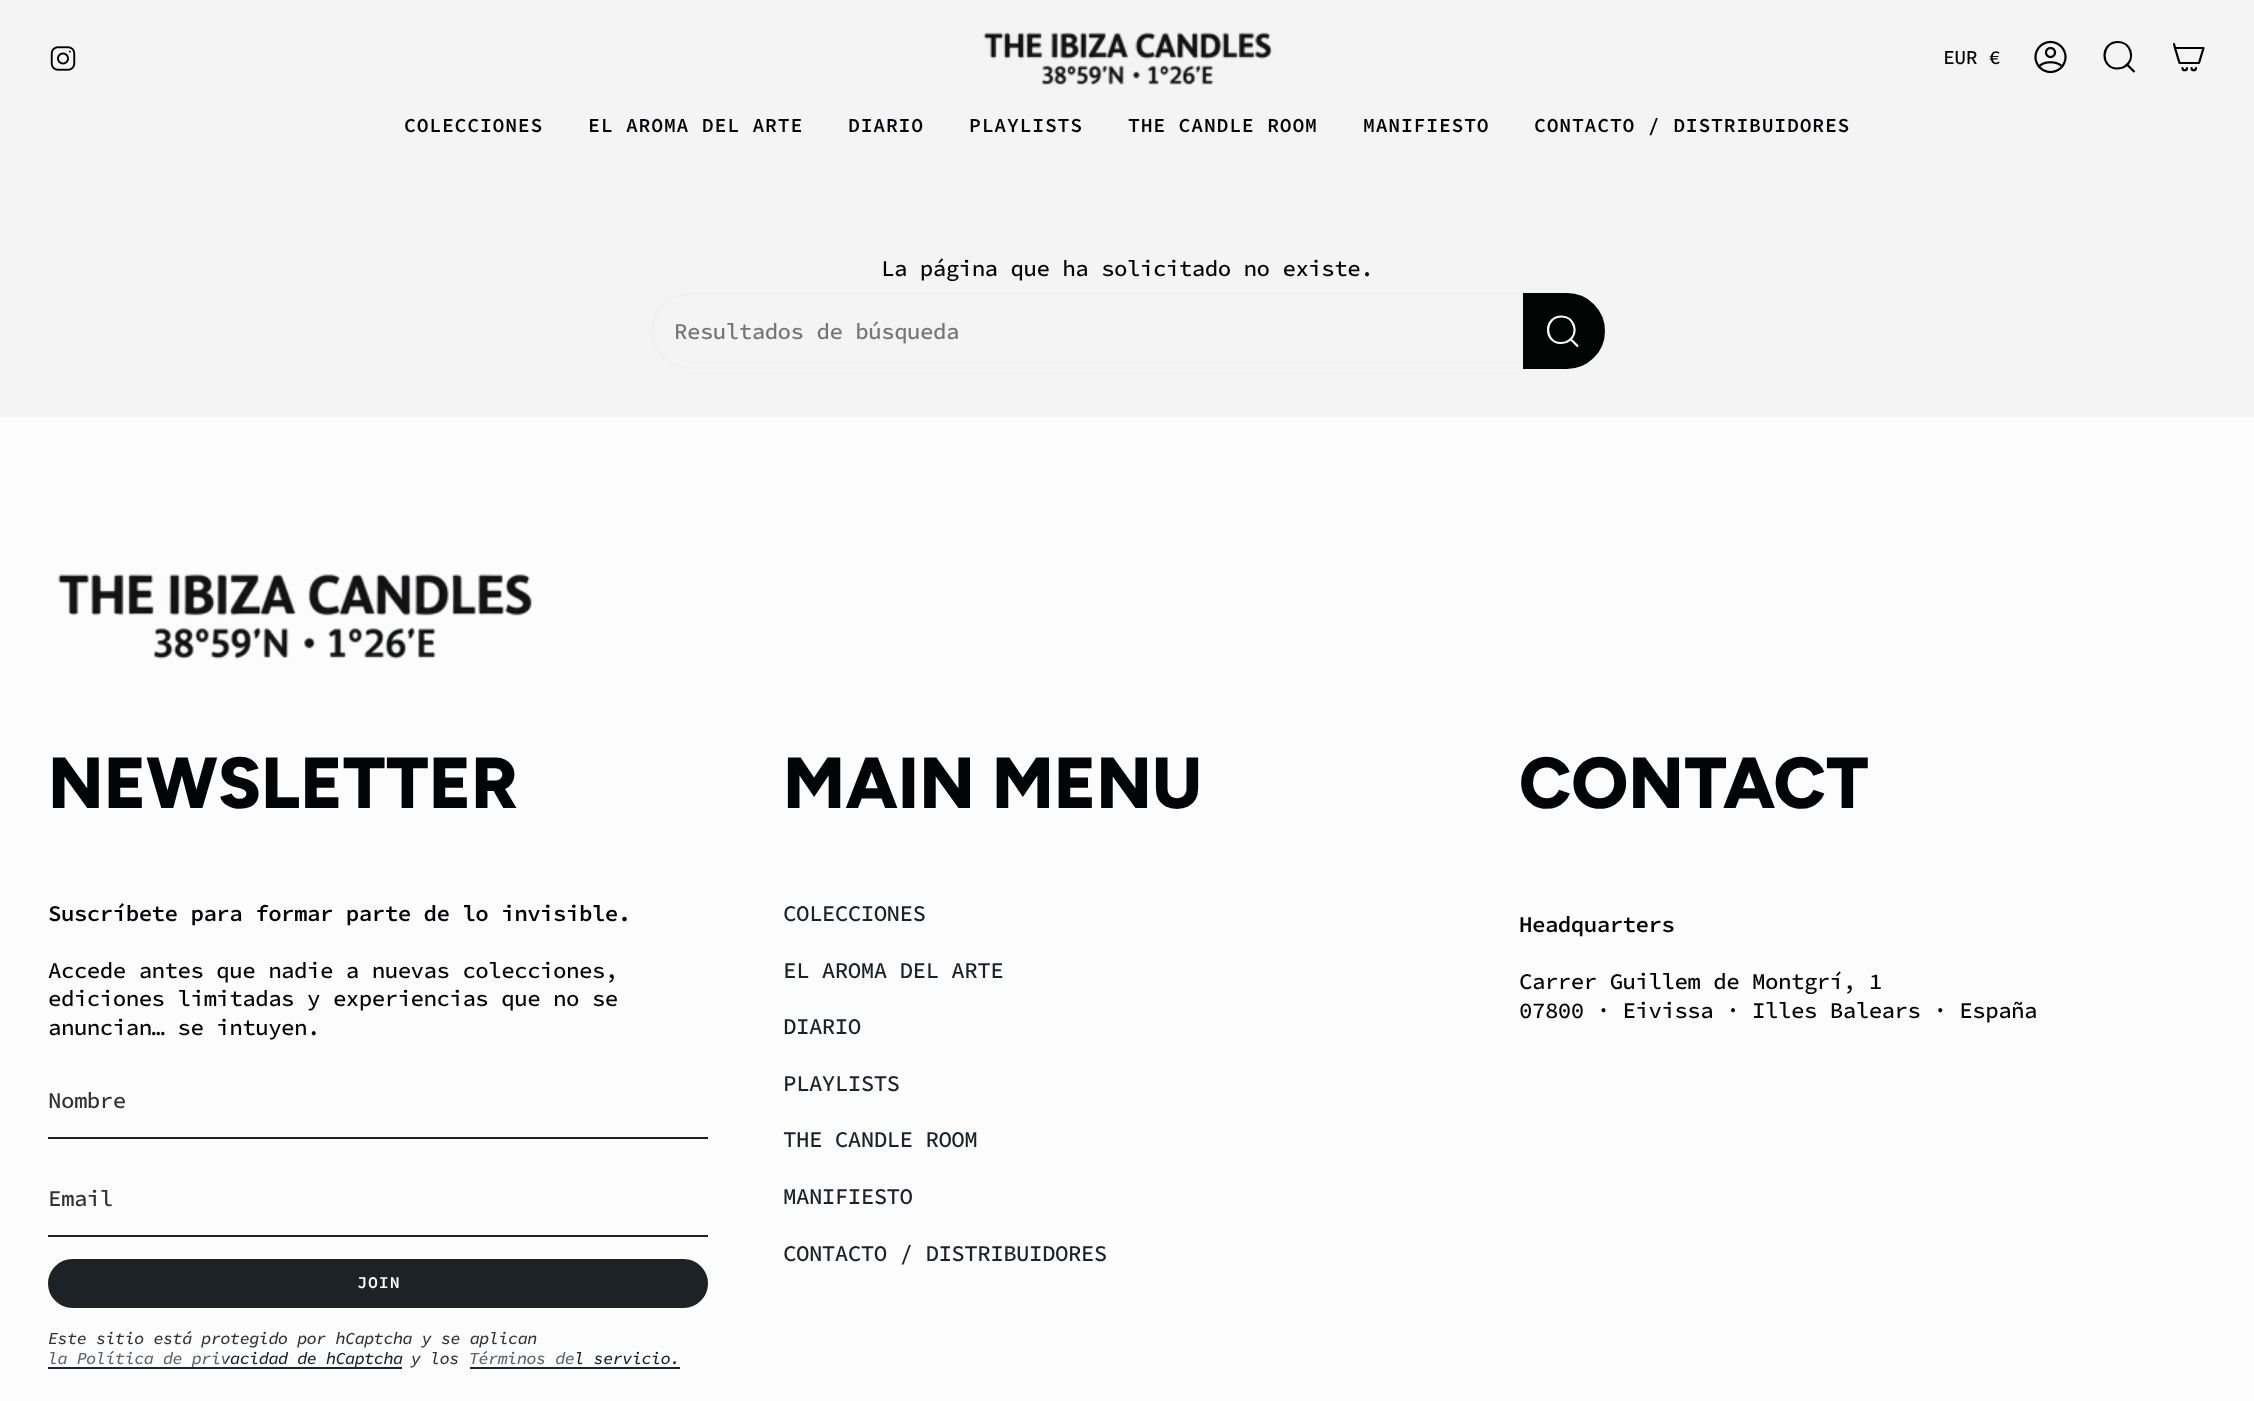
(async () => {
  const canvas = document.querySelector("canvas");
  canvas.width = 2254;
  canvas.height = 1401;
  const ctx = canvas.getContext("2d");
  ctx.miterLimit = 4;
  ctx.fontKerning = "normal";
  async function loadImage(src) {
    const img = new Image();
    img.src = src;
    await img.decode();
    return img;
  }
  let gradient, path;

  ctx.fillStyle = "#f4f4f4";
  ctx.fillRect(0, 0, 2254, 1401);
  ctx.drawImage(await loadImage("img/1.png"), 50, 46, 26, 25);
  ctx.drawImage(await loadImage("img/2.png"), 983, 32, 290, 53);
  ctx.drawImage(await loadImage("img/3.png"), 2034, 40, 33, 34);
  path = new Path2D("M2118 42C2130.5 42 2136 58.5 2125.5 66C2123 68 2120 68.5 2117 68.5C2100 68 2100.5 42 2118 42ZM2127 64.5L2134.5 72");
  ctx.strokeStyle = "#000000";
  ctx.lineWidth = 2.2;
  ctx.stroke(path);
  path = new Path2D("M2175 48H2203.5L2199 63H2179.5ZM2175 48L2174 44M2187 68C2187 71 2182.5 71 2182.5 68M2196 68C2196 71 2191.5 71 2191.5 68");
  ctx.lineCap = "round";
  ctx.lineJoin = "round";
  ctx.stroke(path);
  ctx.beginPath();
  ctx.roundRect(652, 294, 870, 74, [37, 0, 0, 37]);
  ctx.strokeStyle = "#f0f0f0";
  ctx.lineWidth = 2;
  ctx.lineJoin = "miter";
  ctx.stroke();
  ctx.fillStyle = "#020303";
  ctx.beginPath();
  ctx.roundRect(1524, 294, 80, 74, [0, 37, 37, 0]);
  ctx.fill();
  ctx.strokeStyle = "#020303";
  ctx.stroke();
  path = new Path2D("M1561.5 316.5C1574 316.5 1579.5 333 1569 340.5C1566.5 342.5 1563.5 343 1560.5 343C1543.5 342.5 1544 316.5 1561.5 316.5ZM1570.5 339L1578 346.5");
  ctx.strokeStyle = "#ffffff";
  ctx.lineWidth = 2.2;
  ctx.lineCap = "butt";
  ctx.stroke(path);
  ctx.fillStyle = "#fcfcfc";
  ctx.fillRect(0, 417, 2254, 984);
  ctx.drawImage(await loadImage("img/4.png"), 58, 574, 475, 85);
  ctx.fillStyle = "#212121";
  ctx.fillRect(48, 1137, 660, 2);
  ctx.fillRect(48, 1235, 660, 2);
  ctx.fillStyle = "#1d2226";
  ctx.beginPath();
  ctx.roundRect(49, 1260, 658, 47, 23.5);
  ctx.fill();
  ctx.strokeStyle = "#1d2226";
  ctx.lineWidth = 2;
  ctx.stroke();
  ctx.fillRect(470, 1367, 210, 2);
  ctx.letterSpacing = "-0.5px";
  ctx.font = "500 19.75px Source Code Pro";
  ctx.fillStyle = "#030405";
  ctx.fillText("EUR €", 1943, 64);
  ctx.letterSpacing = "0.8px";
  ctx.font = "600 19.75px Source Code Pro";
  for (const [text, x, y] of [
    ["COLECCIONES", 404, 132],
    ["EL AROMA DEL ARTE", 588, 132],
    ["DIARIO", 848, 132],
    ["PLAYLISTS", 969, 132],
    ["THE CANDLE ROOM", 1128, 132],
    ["MANIFIESTO", 1363, 132],
    ["CONTACTO / DISTRIBUIDORES", 1534, 132],
  ]) {
    ctx.fillText(text, x, y);
  }
  ctx.letterSpacing = "-0.55px";
  ctx.font = "500 22.5px Source Code Pro";
  ctx.fillText("La página que ha solicitado no existe.", 881, 276);
  ctx.fillStyle = "#757575";
  ctx.fillText("Resultados de búsqueda", 674, 339);
  ctx.letterSpacing = "0px";
  ctx.font = "800 72px Figtree";
  ctx.fillStyle = "#030405";
  ctx.fillText("NEWSLETTER", 48, 808);
  ctx.letterSpacing = "-0.55px";
  ctx.font = "600 22.5px Source Code Pro";
  ctx.fillText("Suscríbete para formar parte de lo invisible.", 48, 921);
  ctx.font = "500 22.5px Source Code Pro";
  for (const [text, x, y] of [
    ["Accede antes que nadie a nuevas colecciones,", 48, 978],
    ["ediciones limitadas y experiencias que no se", 48, 1006],
    ["anuncian… se intuyen.", 48, 1035],
  ]) {
    ctx.fillText(text, x, y);
  }
  ctx.fillStyle = "#323232";
  ctx.fillText("Nombre", 48, 1108);
  ctx.fillText("Email", 48, 1206);
  ctx.letterSpacing = "1px";
  ctx.font = "600 16.5px Source Code Pro";
  ctx.fillStyle = "#ffffff";
  ctx.fillText("JOIN", 357, 1288);
  ctx.letterSpacing = "-0.55px";
  ctx.font = "italic 500 16.9px Source Code Pro";
  ctx.fillStyle = "#323232";
  ctx.fillText("Este sitio está protegido por hCaptcha y se aplican", 48, 1344);
  gradient = ctx.createLinearGradient(48, 1358, 402, 1358);
  gradient.addColorStop(0, "#606366");
  gradient.addColorStop(0.5, "#606366");
  gradient.addColorStop(0.5, "#1d2226");
  gradient.addColorStop(1, "#1d2226");
  ctx.fillStyle = gradient;
  ctx.fillText("la Política de privacidad de hCaptcha", 48, 1364);
  ctx.fillStyle = "#1d2226";
  ctx.fillRect(48, 1367, 354, 2);
  ctx.fillStyle = "#323232";
  ctx.fillText("y los", 411, 1364);
  gradient = ctx.createLinearGradient(469, 1358, 679, 1358);
  gradient.addColorStop(0, "#606366");
  gradient.addColorStop(0.5, "#606366");
  gradient.addColorStop(0.5, "#1d2226");
  gradient.addColorStop(1, "#1d2226");
  ctx.fillStyle = gradient;
  ctx.fillText("Términos del servicio.", 469, 1364);
  ctx.letterSpacing = "0px";
  ctx.font = "800 72px Figtree";
  ctx.fillStyle = "#030405";
  ctx.fillText("MAIN MENU", 783, 808);
  ctx.letterSpacing = "-0.55px";
  ctx.font = "500 22.5px Source Code Pro";
  ctx.fillStyle = "#1d2226";
  for (const [text, x, y] of [
    ["COLECCIONES", 783, 921],
    ["EL AROMA DEL ARTE", 783, 978],
    ["DIARIO", 783, 1034],
    ["PLAYLISTS", 783, 1091],
    ["THE CANDLE ROOM", 783, 1147],
    ["MANIFIESTO", 783, 1204],
    ["CONTACTO / DISTRIBUIDORES", 783, 1261],
  ]) {
    ctx.fillText(text, x, y);
  }
  ctx.letterSpacing = "0px";
  ctx.font = "800 72px Figtree";
  ctx.fillStyle = "#030405";
  ctx.fillText("CONTACT", 1519, 808);
  ctx.letterSpacing = "-0.55px";
  ctx.font = "600 22.5px Source Code Pro";
  ctx.fillText("Headquarters", 1519, 932);
  ctx.font = "500 22.5px Source Code Pro";
  ctx.fillText("Carrer Guillem de Montgrí, 1", 1519, 989);
  ctx.fillText("07800 · Eivissa · Illes Balears · España", 1519, 1018);
})();
